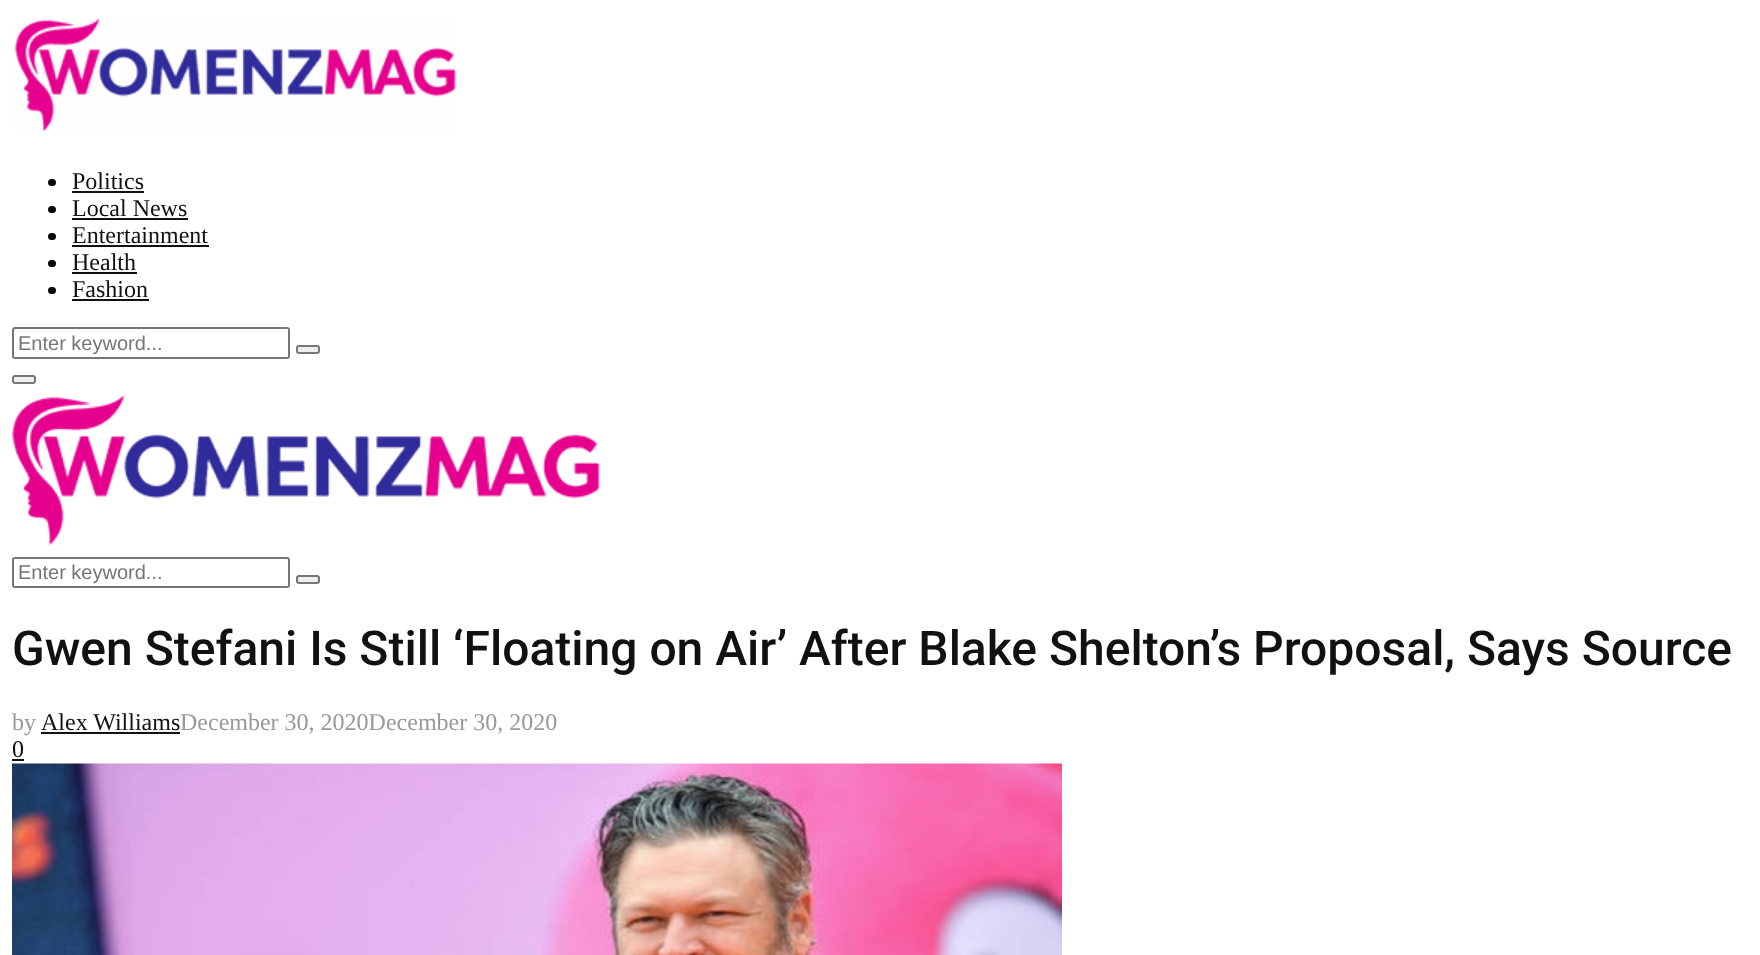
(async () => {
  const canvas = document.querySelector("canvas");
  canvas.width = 1760;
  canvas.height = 955;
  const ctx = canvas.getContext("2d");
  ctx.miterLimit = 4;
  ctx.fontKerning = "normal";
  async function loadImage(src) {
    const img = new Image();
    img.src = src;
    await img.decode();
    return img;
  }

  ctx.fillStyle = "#ffffff";
  ctx.fillRect(0, 0, 1760, 955);
  ctx.drawImage(await loadImage("img/1.png"), 14, 18, 443, 114);
  ctx.fillStyle = "#0a0a0a";
  ctx.beginPath();
  ctx.roundRect(48, 179, 8, 7, 3.5);
  ctx.fill();
  ctx.fillStyle = "#111111";
  ctx.fillRect(72, 191, 72, 2);
  ctx.fillStyle = "#0a0a0a";
  ctx.beginPath();
  ctx.roundRect(48, 206, 8, 7, 3.5);
  ctx.fill();
  ctx.fillStyle = "#111111";
  ctx.fillRect(72, 218, 116, 2);
  ctx.fillStyle = "#0a0a0a";
  ctx.beginPath();
  ctx.roundRect(48, 233, 8, 7, 3.5);
  ctx.fill();
  ctx.fillStyle = "#111111";
  ctx.fillRect(72, 245, 137, 2);
  ctx.fillStyle = "#0a0a0a";
  ctx.beginPath();
  ctx.roundRect(48, 260, 8, 7, 3.5);
  ctx.fill();
  ctx.fillStyle = "#111111";
  ctx.fillRect(72, 272, 65, 2);
  ctx.fillStyle = "#0a0a0a";
  ctx.beginPath();
  ctx.roundRect(48, 287, 8, 7, 3.5);
  ctx.fill();
  ctx.fillStyle = "#111111";
  ctx.fillRect(72, 299, 77, 2);
  ctx.beginPath();
  ctx.roundRect(13, 328, 276, 30, 2);
  ctx.strokeStyle = "#767676";
  ctx.lineWidth = 2;
  ctx.stroke();
  ctx.fillStyle = "#efefef";
  ctx.beginPath();
  ctx.roundRect(297, 346, 22, 7, 2);
  ctx.fill();
  ctx.stroke();
  ctx.beginPath();
  ctx.roundRect(13, 376, 22, 7, 2);
  ctx.fill();
  ctx.stroke();
  ctx.drawImage(await loadImage("img/2.png"), 12, 394, 589, 151);
  ctx.beginPath();
  ctx.roundRect(13, 558, 276, 29, 2);
  ctx.stroke();
  ctx.beginPath();
  ctx.roundRect(297, 576, 22, 7, 2);
  ctx.fill();
  ctx.stroke();
  ctx.fillStyle = "#111111";
  ctx.fillRect(41, 732, 139, 2);
  ctx.fillRect(12, 759, 12, 2);
  ctx.drawImage(await loadImage("img/3.png"), 12, 763, 1050, 192);
  ctx.font = "24px Liberation Serif";
  for (const [text, x, y] of [
    ["Politics", 72, 189],
    ["Local News", 72, 216],
    ["Entertainment", 72, 243],
    ["Health", 72, 270],
    ["Fashion", 72, 297],
  ]) {
    ctx.fillText(text, x, y);
  }
  ctx.font = "20px Liberation Sans";
  ctx.fillStyle = "#757575";
  ctx.fillText("Enter keyword...", 18, 350);
  ctx.fillText("Enter keyword...", 18, 579);
  ctx.font = "500 48px Roboto";
  ctx.fillStyle = "#111111";
  ctx.fillText("Gwen Stefani Is Still ‘Floating on Air’ After Blake Shelton’s Proposal, Says Source", 12, 665);
  ctx.font = "24px Liberation Serif";
  ctx.fillStyle = "#999999";
  ctx.fillText("by", 12, 730);
  ctx.fillStyle = "#111111";
  ctx.fillText("Alex Williams", 41, 730);
  ctx.fillStyle = "#999999";
  ctx.fillText("December 30, 2020December 30, 2020", 180, 730);
  ctx.fillStyle = "#111111";
  ctx.fillText("0", 12, 757);
})();
